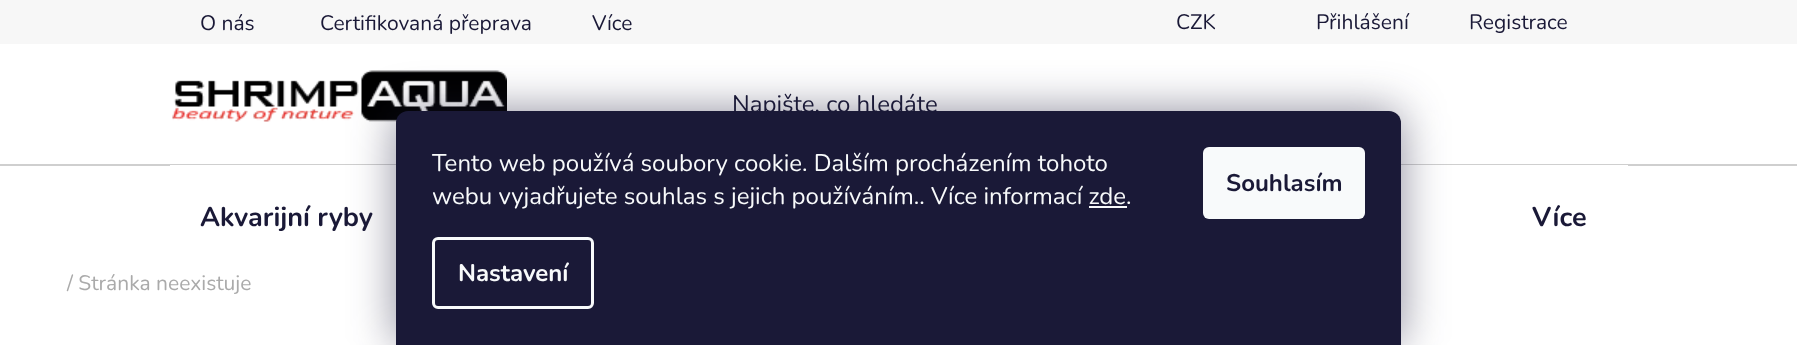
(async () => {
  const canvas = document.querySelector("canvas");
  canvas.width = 1797;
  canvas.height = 345;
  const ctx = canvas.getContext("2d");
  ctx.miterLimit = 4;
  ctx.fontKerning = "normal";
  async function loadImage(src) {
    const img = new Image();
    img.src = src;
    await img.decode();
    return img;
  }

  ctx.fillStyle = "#ffffff";
  ctx.fillRect(0, 0, 1797, 345);
  ctx.fillStyle = "#f7f7f7";
  ctx.fillRect(0, 0, 1797, 44);
  ctx.drawImage(await loadImage("img/1.png"), 172, 70, 335, 52);
  ctx.fillStyle = "#cfcfcf";
  ctx.fillRect(0, 164, 1797, 2);
  ctx.fillStyle = "#ffffff";
  ctx.fillRect(170, 165, 1458, 1);
  ctx.fillStyle = "rgba(27, 25, 57, 0.5)";
  ctx.filter = "blur(22.5px)";
  ctx.beginPath();
  ctx.roundRect(396, 111, 1005, 234, 12);
  ctx.fill();
  ctx.filter = "none";
  ctx.fillStyle = "#1a1937";
  ctx.beginPath();
  ctx.roundRect(396, 111, 1005, 234, [12, 12, 0, 0]);
  ctx.fill();
  ctx.fillStyle = "#f8fafb";
  ctx.fillRect(1089, 206, 38, 2);
  ctx.beginPath();
  ctx.roundRect(433.5, 238.5, 159, 69, 4.5);
  ctx.strokeStyle = "#f8fafb";
  ctx.lineWidth = 3;
  ctx.stroke();
  ctx.beginPath();
  ctx.roundRect(1203, 147, 162, 72, 6);
  ctx.fill();
  ctx.font = "21px Nunito";
  ctx.fillStyle = "#1a1937";
  for (const [text, x, y] of [
    ["O nás", 200, 30],
    ["Certifikovaná přeprava", 320, 30],
    ["Více", 592, 30],
    ["CZK", 1176, 29],
    ["Přihlášení", 1316, 29],
    ["Registrace", 1469, 29],
  ]) {
    ctx.fillText(text, x, y);
  }
  ctx.font = "24px Nunito";
  ctx.fillText("Napište, co hledáte", 732, 112);
  ctx.font = "bold 27px Nunito";
  ctx.fillText("Akvarijní ryby", 200, 226);
  ctx.fillText("Více", 1532, 226);
  ctx.font = "21px Nunito";
  ctx.fillStyle = "#aaaaaa";
  ctx.fillText("/ Stránka neexistuje", 67, 290);
  ctx.font = "24px Nunito";
  ctx.fillStyle = "#f8fafb";
  ctx.fillText("Tento web používá soubory cookie. Dalším procházením tohoto", 432, 171);
  ctx.fillText("webu vyjadřujete souhlas s jejich používáním.. Více informací zde.", 432, 204);
  ctx.font = "bold 24px Nunito";
  ctx.fillText("Nastavení", 458, 281);
  ctx.fillStyle = "#1a1937";
  ctx.fillText("Souhlasím", 1226, 191);
})();
